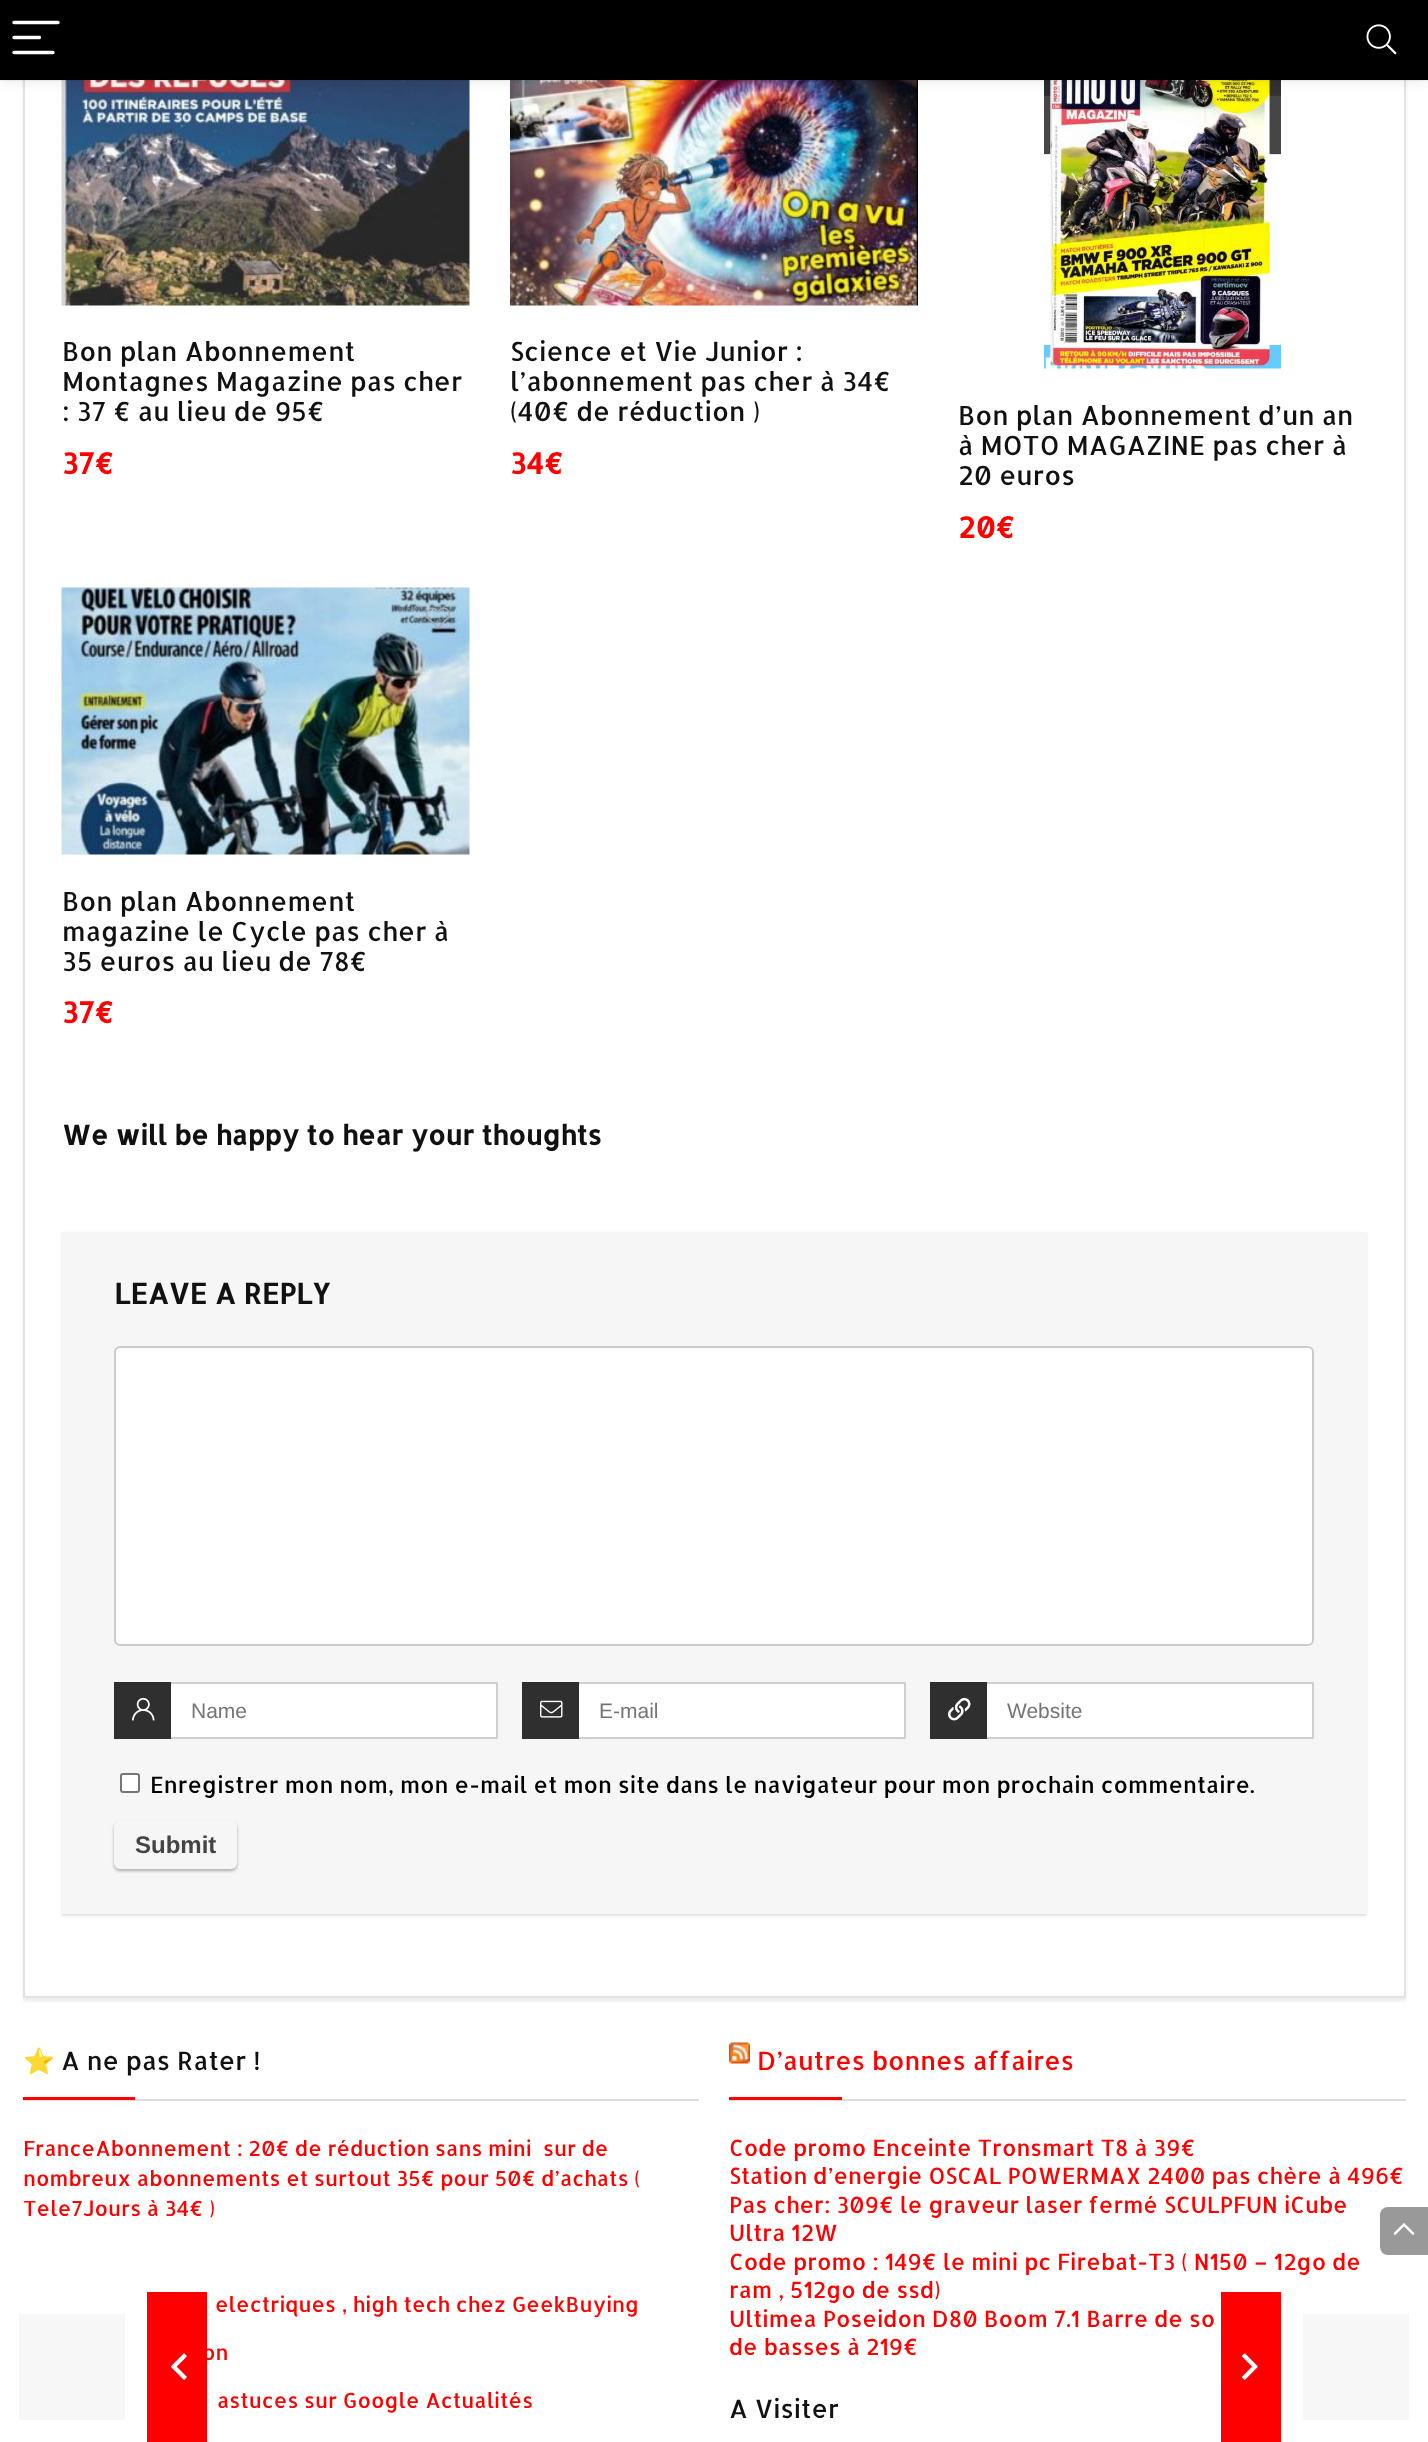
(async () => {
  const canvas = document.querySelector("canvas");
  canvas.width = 1428;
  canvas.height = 2442;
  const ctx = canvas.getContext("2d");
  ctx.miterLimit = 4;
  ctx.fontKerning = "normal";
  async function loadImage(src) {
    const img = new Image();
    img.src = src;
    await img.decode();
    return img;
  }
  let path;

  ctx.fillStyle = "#ffffff";
  ctx.fillRect(0, 0, 1428, 2442);
  ctx.fillStyle = "#ececec";
  ctx.filter = "blur(1.5px)";
  ctx.beginPath();
  ctx.rect(23, -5, 1383, 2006);
  ctx.fill();
  ctx.filter = "none";
  ctx.fillStyle = "#ffffff";
  ctx.fillRect(25, 80, 1379, 1916);
  ctx.strokeStyle = "#e3e3e3";
  ctx.lineWidth = 2;
  ctx.strokeRect(24, -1, 1381, 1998);
  ctx.drawImage(await loadImage("img/2.png"), 61, 80, 409, 226);
  ctx.drawImage(await loadImage("img/3.png"), 510, 80, 408, 226);
  ctx.drawImage(await loadImage("img/4.png"), 1044, 80, 237, 289);
  ctx.strokeStyle = "rgba(0, 0, 0, 0.03)";
  ctx.strokeRect(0, 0, 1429, 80);
  ctx.fillStyle = "rgba(0, 0, 0, 0.1)";
  ctx.filter = "blur(6px)";
  ctx.beginPath();
  ctx.rect(0, 2, 1428, 79);
  ctx.fill();
  ctx.filter = "none";
  ctx.fillStyle = "#000000";
  ctx.fillRect(0, 0, 1428, 80);
  path = new Path2D("M14 22.5H58M14 37.5H39.5M14 52.5H53");
  ctx.strokeStyle = "#ffffff";
  ctx.lineWidth = 3.4;
  ctx.lineCap = "round";
  ctx.stroke(path);
  ctx.drawImage(await loadImage("img/1.png"), 1366, 24, 31, 31);
  ctx.drawImage(await loadImage("img/5.png"), 61, 587, 409, 268);
  ctx.drawImage(await loadImage("img/6.png"), 426, 607, 24, 22);
  ctx.fillStyle = "rgba(0, 0, 0, 0.12)";
  ctx.filter = "blur(1px)";
  ctx.beginPath();
  ctx.rect(62, 1233, 1305, 683);
  ctx.fill();
  ctx.filter = "none";
  ctx.fillStyle = "#f6f6f6";
  ctx.fillRect(62, 1233, 1305, 681);
  ctx.fillStyle = "#ffffff";
  ctx.beginPath();
  ctx.roundRect(115, 1347, 1198, 298, 5);
  ctx.fill();
  ctx.strokeStyle = "#cccccc";
  ctx.lineWidth = 2;
  ctx.stroke();
  ctx.fillRect(171, 1684, 325, 53);
  ctx.strokeStyle = "#cbd0d2";
  ctx.strokeRect(115, 1683, 382, 55);
  ctx.fillStyle = "#2f2f2f";
  ctx.fillRect(114, 1682, 57, 57);
  ctx.drawImage(await loadImage("img/7.png"), 132, 1697, 23, 24);
  ctx.fillStyle = "#ffffff";
  ctx.fillRect(579, 1684, 325, 53);
  ctx.strokeRect(523, 1683, 382, 55);
  ctx.fillStyle = "#2f2f2f";
  ctx.fillRect(522, 1682, 57, 57);
  ctx.drawImage(await loadImage("img/8.png"), 540, 1700, 23, 18);
  ctx.fillStyle = "#ffffff";
  ctx.fillRect(987, 1684, 325, 53);
  ctx.strokeRect(931, 1683, 382, 55);
  ctx.fillStyle = "#2f2f2f";
  ctx.fillRect(930, 1682, 57, 57);
  ctx.drawImage(await loadImage("img/9.png"), 948, 1697, 23, 24);
  ctx.fillStyle = "#ffffff";
  ctx.beginPath();
  ctx.roundRect(121, 1774, 18, 18, 2);
  ctx.fill();
  ctx.strokeStyle = "#767676";
  ctx.stroke();
  ctx.fillStyle = "rgba(0, 0, 0, 0.08)";
  ctx.filter = "blur(1.5px)";
  ctx.beginPath();
  ctx.roundRect(114, 1823, 123, 48, 6);
  ctx.fill();
  ctx.filter = "none";
  ctx.fillStyle = "rgba(60, 64, 67, 0.3)";
  ctx.filter = "blur(1.5px)";
  ctx.beginPath();
  ctx.roundRect(114, 1823, 123, 48, 6);
  ctx.fill();
  ctx.filter = "none";
  ctx.fillStyle = "#f6f6f6";
  ctx.beginPath();
  ctx.roundRect(114, 1821, 123, 48, 6);
  ctx.fill();
  ctx.fillStyle = "#ff0000";
  ctx.fillRect(147, 2292, 60, 150);
  ctx.fillStyle = "#f7f7f7";
  ctx.fillRect(19, 2314, 106, 106);
  ctx.drawImage(await loadImage("img/10.png"), 171, 2353, 16, 27);
  ctx.fillStyle = "#ff0000";
  ctx.fillRect(1221, 2292, 60, 150);
  ctx.drawImage(await loadImage("img/11.png"), 1242, 2353, 16, 27);
  for (const [x, y, w, h, color] of [
    [1303, 2314, 106, 106, "#f7f7f7"],
    [23, 2099, 676, 2, "#dddddd"],
    [23, 2097, 112, 3, "#ff0000"],
    [729, 2099, 677, 2, "#dddddd"],
  ]) {
    ctx.fillStyle = color;
    ctx.fillRect(x, y, w, h);
  }
  ctx.drawImage(await loadImage("img/12.png"), 729, 2042, 21, 22);
  ctx.fillStyle = "#ff0000";
  ctx.fillRect(729, 2097, 113, 3);
  ctx.fillStyle = "#999999";
  ctx.beginPath();
  ctx.roundRect(1380, 2207, 48, 48, [8, 0, 0, 8]);
  ctx.fill();
  ctx.drawImage(await loadImage("img/13.png"), 1393, 2223, 22, 12);
  ctx.font = "26.4px Allerta";
  ctx.fillStyle = "#111111";
  for (const [text, x, y] of [
    ["Bon plan Abonnement", 62, 361],
    ["Montagnes Magazine pas cher", 62, 391],
    [": 37 € au lieu de 95€", 62, 421],
  ]) {
    ctx.fillText(text, x, y);
  }
  ctx.font = "bold 29px Allerta";
  ctx.fillStyle = "#ff0000";
  ctx.fillText("37€", 62, 474);
  ctx.font = "26.4px Allerta";
  ctx.fillStyle = "#111111";
  for (const [text, x, y] of [
    ["Science et Vie Junior :", 510, 361],
    ["l’abonnement pas cher à 34€", 510, 391],
    ["(40€ de réduction )", 510, 421],
  ]) {
    ctx.fillText(text, x, y);
  }
  ctx.font = "bold 29px Allerta";
  ctx.fillStyle = "#ff0000";
  ctx.fillText("34€", 510, 474);
  ctx.font = "26.4px Allerta";
  ctx.fillStyle = "#111111";
  for (const [text, x, y] of [
    ["Bon plan Abonnement d’un an", 958, 425],
    ["à MOTO MAGAZINE pas cher à", 958, 455],
    ["20 euros", 958, 485],
  ]) {
    ctx.fillText(text, x, y);
  }
  ctx.font = "bold 29px Allerta";
  ctx.fillStyle = "#ff0000";
  ctx.fillText("20€", 958, 538);
  ctx.font = "26.4px Allerta";
  ctx.fillStyle = "#111111";
  for (const [text, x, y] of [
    ["Bon plan Abonnement", 62, 911],
    ["magazine le Cycle pas cher à", 62, 941],
    ["35 euros au lieu de 78€", 62, 971],
  ]) {
    ctx.fillText(text, x, y);
  }
  ctx.font = "bold 29px Allerta";
  ctx.fillStyle = "#ff0000";
  ctx.fillText("37€", 62, 1023);
  ctx.font = "bold 27px Allerta";
  ctx.fillStyle = "#111111";
  ctx.fillText("We will be happy to hear your thoughts", 62, 1145);
  ctx.font = "bold 28.5px Allerta";
  ctx.fillText("LEAVE A REPLY", 114, 1304);
  ctx.font = "21px Liberation Sans";
  ctx.fillStyle = "#757575";
  for (const [text, x, y] of [
    ["Name", 191, 1718],
    ["E-mail", 599, 1718],
    ["Website", 1007, 1718],
  ]) {
    ctx.fillText(text, x, y);
  }
  ctx.font = "22.5px Allerta";
  ctx.fillStyle = "#000000";
  ctx.fillText("Enregistrer mon nom, mon e-mail et mon site dans le navigateur pour mon prochain commentaire.", 150, 1793);
  ctx.font = "bold 24px Liberation Sans";
  ctx.fillStyle = "#444444";
  ctx.fillText("Submit", 135, 1853);
  ctx.save();
  ctx.beginPath();
  ctx.rect(23, 2043, 1383, 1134);
  ctx.clip();
  ctx.font = "25.5px Noto Color Emoji";
  ctx.fillStyle = "#111111";
  ctx.fillText("⭐️", 23, 2070);
  ctx.restore();
  ctx.font = "25.5px Allerta";
  ctx.fillStyle = "#111111";
  ctx.fillText("A ne pas Rater !", 61, 2070);
  ctx.font = "21px Allerta";
  ctx.fillStyle = "#ff0000";
  for (const [text, x, y] of [
    ["FranceAbonnement : 20€ de réduction sans mini  sur de", 23, 2156],
    ["nombreux abonnements et surtout 35€ pour 50€ d’achats (", 23, 2186],
    ["Tele7Jours à 34€ )", 23, 2216],
    ["electriques , high tech chez GeekBuying", 215, 2312],
    ["on", 202, 2360],
    ["astuces sur Google Actualités", 217, 2408],
  ]) {
    ctx.fillText(text, x, y);
  }
  ctx.font = "25.5px Allerta";
  ctx.fillText("D’autres bonnes affaires", 757, 2070);
  ctx.font = "22.5px Allerta";
  for (const [text, x, y] of [
    ["Code promo Enceinte Tronsmart T8 à 39€", 729, 2156],
    ["Station d’energie OSCAL POWERMAX 2400 pas chère à 496€", 729, 2184],
    ["Pas cher: 309€ le graveur laser fermé SCULPFUN iCube", 729, 2213],
    ["Ultra 12W", 729, 2241],
    ["Code promo : 149€ le mini pc Firebat-T3 ( N150 – 12go de", 729, 2270],
    ["ram , 512go de ssd)", 729, 2298],
    ["Ultimea Poseidon D80 Boom 7.1 Barre de so", 729, 2327],
    ["de basses à 219€", 729, 2355],
  ]) {
    ctx.fillText(text, x, y);
  }
  ctx.font = "25.5px Allerta";
  ctx.fillStyle = "#111111";
  ctx.fillText("A Visiter", 729, 2418);
})();
